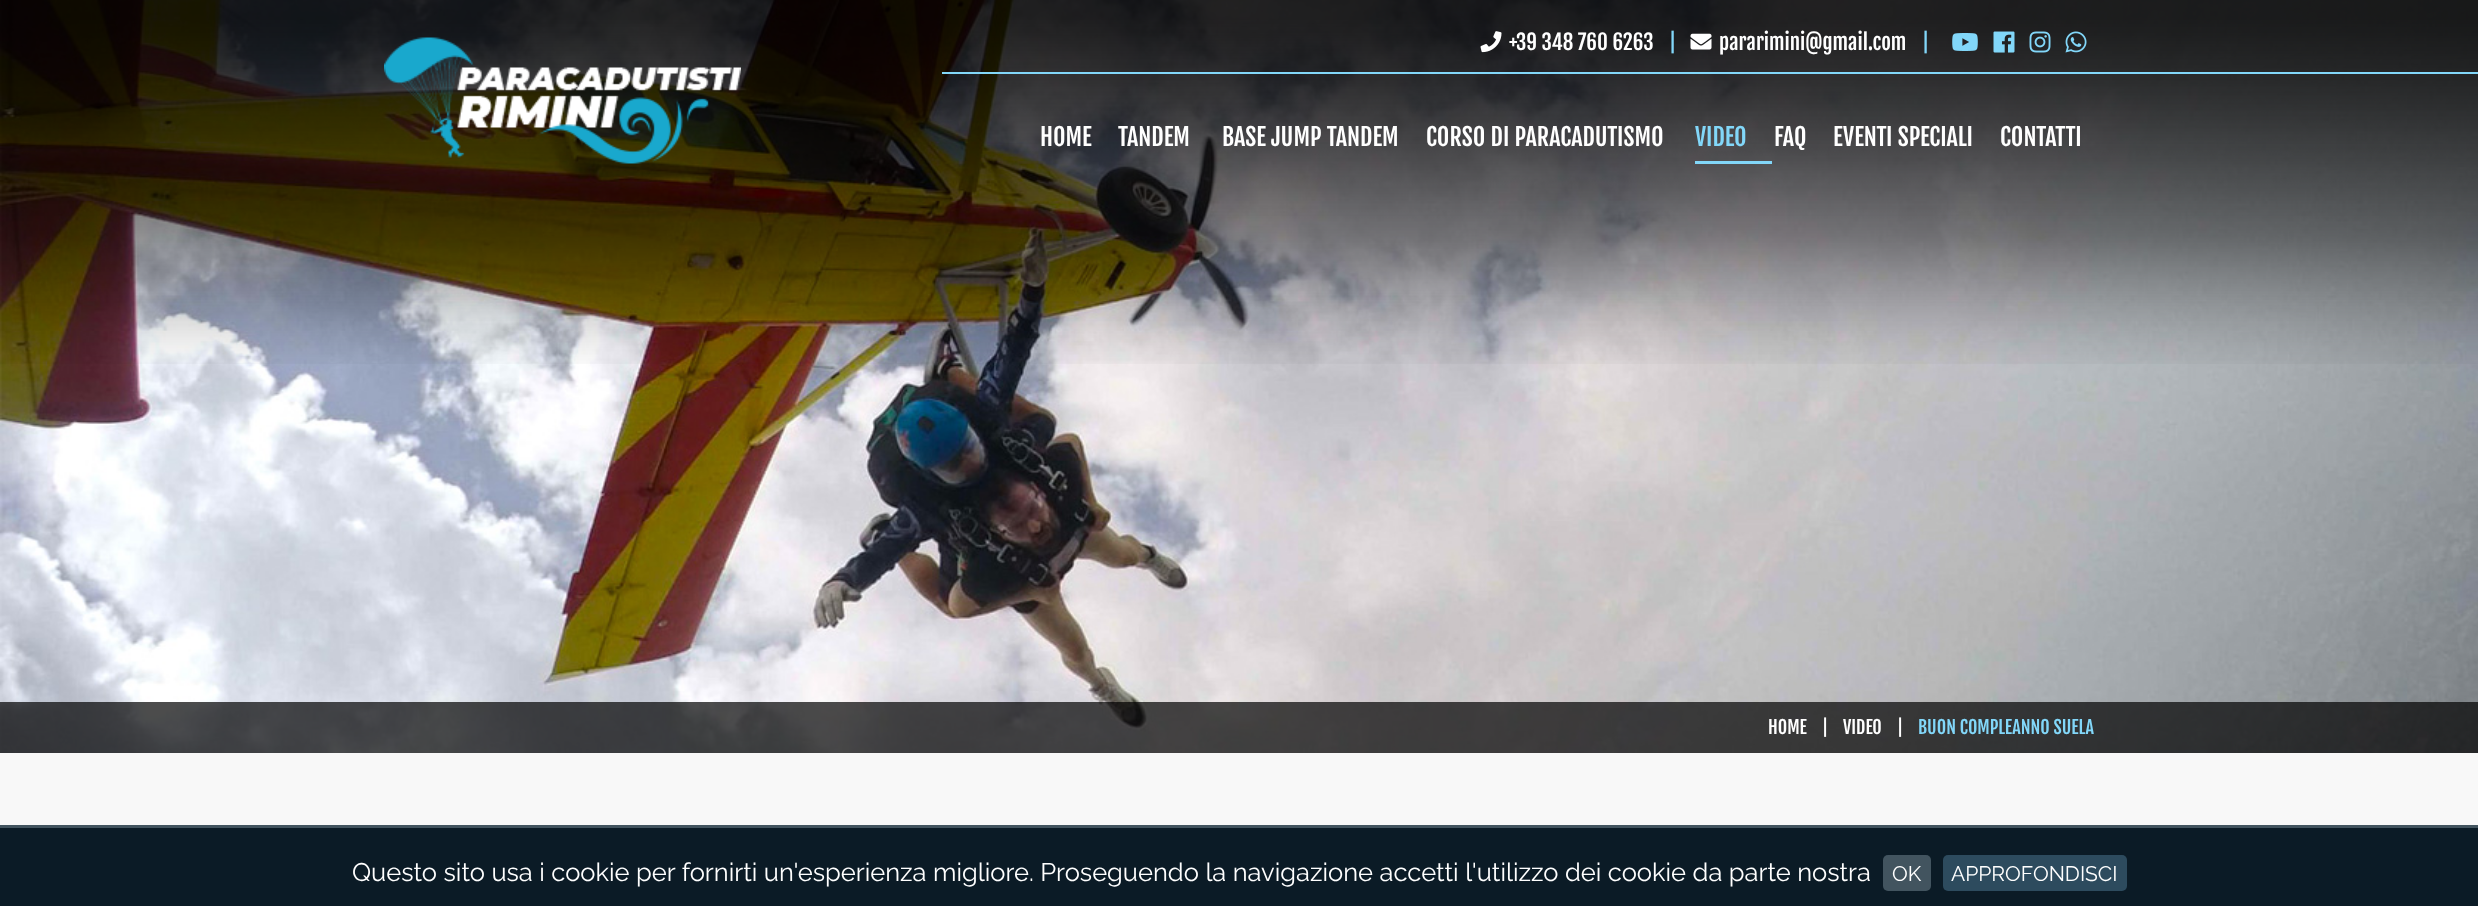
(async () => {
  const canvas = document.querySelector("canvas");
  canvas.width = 2478;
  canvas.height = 906;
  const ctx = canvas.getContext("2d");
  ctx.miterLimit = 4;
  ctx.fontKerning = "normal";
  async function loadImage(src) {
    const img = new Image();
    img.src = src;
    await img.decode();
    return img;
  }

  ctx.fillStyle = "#ffffff";
  ctx.fillRect(0, 0, 2478, 906);
  ctx.drawImage(await loadImage("img/8.png"), 0, 0, 2478, 753);
  ctx.drawImage(await loadImage("img/9.png"), 0, 0, 2478, 364);
  ctx.drawImage(await loadImage("img/1.png"), 1480, 31, 22, 22);
  ctx.drawImage(await loadImage("img/2.png"), 1690, 33, 22, 17);
  ctx.drawImage(await loadImage("img/3.png"), 1952, 33, 26, 18);
  ctx.drawImage(await loadImage("img/4.png"), 1993, 31, 22, 22);
  ctx.drawImage(await loadImage("img/5.png"), 2029, 31, 22, 22);
  ctx.drawImage(await loadImage("img/6.png"), 2065, 31, 22, 22);
  ctx.fillStyle = "#82d7f9";
  ctx.fillRect(942, 72, 1536, 2);
  ctx.drawImage(await loadImage("img/7.png"), 384, 37, 357, 127);
  for (const [x, y, w, h, color] of [
    [1695, 161, 77, 3, "#82d7f9"],
    [0, 702, 2478, 51, "rgba(0, 0, 0, 0.7)"],
    [0, 753, 2478, 72, "#f8f8f8"],
    [0, 828, 2478, 78, "#0b1b26"],
    [0, 825, 2478, 3, "#42545f"],
  ]) {
    ctx.fillStyle = color;
    ctx.fillRect(x, y, w, h);
  }
  ctx.beginPath();
  ctx.roundRect(1883, 855, 48, 36, 5);
  ctx.fill();
  ctx.fillStyle = "#2d4b5e";
  ctx.beginPath();
  ctx.roundRect(1943, 855, 184, 36, 5);
  ctx.fill();
  ctx.font = "21px Fjalla One";
  ctx.fillStyle = "#ffffff";
  ctx.fillText("+39 348 760 6263", 1509, 50);
  ctx.fillStyle = "#82d7f9";
  ctx.fillText("|", 1669, 50);
  ctx.fillStyle = "#ffffff";
  ctx.fillText("pararimini@gmail.com", 1719, 50);
  ctx.fillStyle = "#82d7f9";
  ctx.fillText("|", 1922, 50);
  ctx.font = "24px Fjalla One";
  ctx.fillStyle = "#ffffff";
  for (const [text, x, y] of [
    ["HOME", 1040, 146],
    ["TANDEM", 1118, 146],
    ["BASE JUMP TANDEM", 1222, 146],
    ["CORSO DI PARACADUTISMO", 1426, 146],
  ]) {
    ctx.fillText(text, x, y);
  }
  ctx.fillStyle = "#82d7f9";
  ctx.fillText("VIDEO", 1695, 146);
  ctx.fillStyle = "#ffffff";
  for (const [text, x, y] of [
    ["FAQ", 1774, 146],
    ["EVENTI SPECIALI", 1833, 146],
    ["CONTATTI", 2000, 146],
  ]) {
    ctx.fillText(text, x, y);
  }
  ctx.font = "18px Fjalla One";
  for (const [text, x, y] of [
    ["HOME", 1768, 734],
    ["|", 1822, 734],
    ["VIDEO", 1843, 734],
    ["|", 1897, 734],
  ]) {
    ctx.fillText(text, x, y);
  }
  ctx.fillStyle = "#82d7f9";
  ctx.fillText("BUON COMPLEANNO SUELA", 1918, 734);
  ctx.font = "100 25.5px Raleway";
  ctx.fillStyle = "#ffffff";
  ctx.fillText("Questo sito usa i cookie per fornirti un'esperienza migliore. Proseguendo la navigazione accetti l'utilizzo dei cookie da parte nostra", 352, 881);
  ctx.font = "100 21px Raleway";
  ctx.fillText("OK", 1892, 881);
  ctx.fillText("APPROFONDISCI", 1951, 881);
})();
